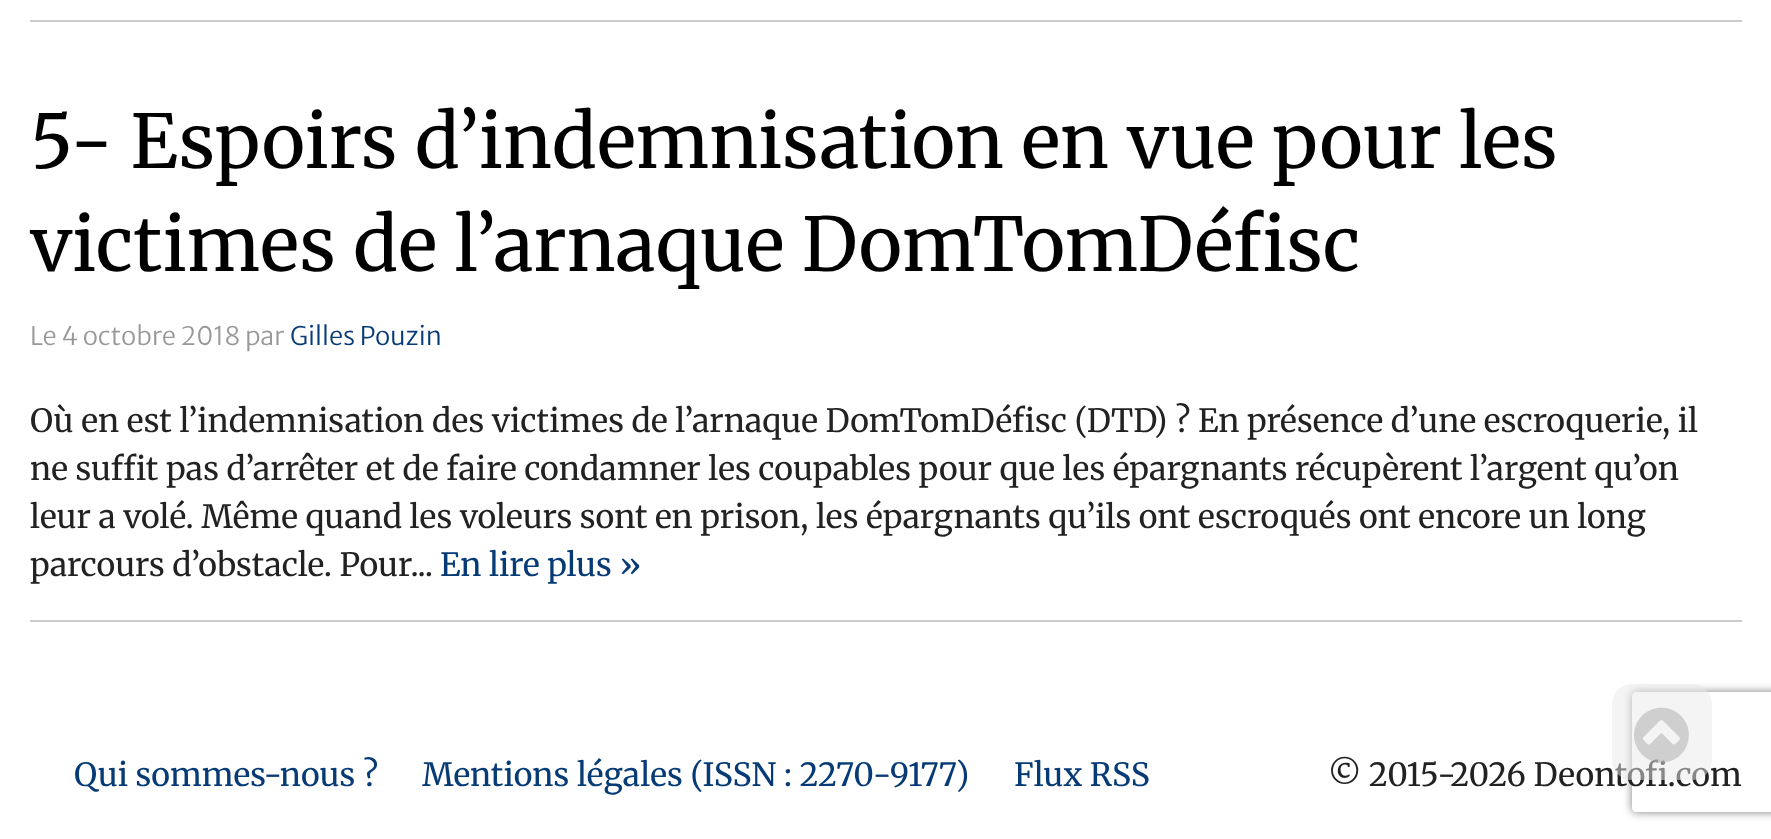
(async () => {
  const canvas = document.querySelector("canvas");
  canvas.width = 1771;
  canvas.height = 839;
  const ctx = canvas.getContext("2d");
  ctx.miterLimit = 4;
  ctx.fontKerning = "normal";
  async function loadImage(src) {
    const img = new Image();
    img.src = src;
    await img.decode();
    return img;
  }
  let path;

  ctx.fillStyle = "#ffffff";
  ctx.fillRect(0, 0, 1771, 839);
  ctx.fillStyle = "#cccccc";
  ctx.fillRect(30, 20, 1712, 2);
  ctx.fillRect(30, 620, 1712, 2);
  ctx.save();
  path = new Path2D("M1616 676H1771V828H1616ZM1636 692H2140C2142 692 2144 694 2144 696V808C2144 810 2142 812 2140 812H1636C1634 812 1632 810 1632 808V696C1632 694 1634 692 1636 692Z");
  ctx.clip(path, "evenodd");
  ctx.fillStyle = "#808080";
  ctx.filter = "blur(5px)";
  ctx.beginPath();
  ctx.roundRect(1632, 692, 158, 120, 4);
  ctx.fill();
  ctx.filter = "none";
  ctx.restore();
  ctx.font = "74px Merriweather";
  ctx.fillStyle = "#000000";
  ctx.fillText("5- Espoirs d’indemnisation en vue pour les", 30, 168);
  ctx.fillText("victimes de l’arnaque DomTomDéfisc", 30, 271);
  ctx.font = "300 25.5px Merriweather Sans";
  ctx.fillStyle = "#999999";
  ctx.fillText("Le 4 octobre 2018 par", 30, 345);
  ctx.fillStyle = "#073b75";
  ctx.fillText("Gilles Pouzin", 290, 345);
  ctx.font = "32px Merriweather";
  ctx.fillStyle = "#222222";
  for (const [text, x, y] of [
    ["Où en est l’indemnisation des victimes de l’arnaque DomTomDéfisc (DTD) ? En présence d’une escroquerie, il", 30, 432],
    ["ne suffit pas d’arrêter et de faire condamner les coupables pour que les épargnants récupèrent l’argent qu’on", 30, 480],
    ["leur a volé. Même quand les voleurs sont en prison, les épargnants qu’ils ont escroqués ont encore un long", 30, 528],
    ["parcours d’obstacle. Pour...", 30, 576],
  ]) {
    ctx.fillText(text, x, y);
  }
  ctx.fillStyle = "#073b75";
  for (const [text, x, y] of [
    ["En lire plus »", 440, 576],
    ["Qui sommes-nous ?", 74, 786],
    ["Mentions légales (ISSN : 2270-9177)", 422, 786],
    ["Flux RSS", 1014, 786],
  ]) {
    ctx.fillText(text, x, y);
  }
  ctx.fillStyle = "#222222";
  ctx.fillText("© 2015-2026 Deontofi.com", 1328, 786);
  ctx.fillStyle = "rgba(234, 234, 234, 0.5)";
  ctx.beginPath();
  ctx.roundRect(1612, 684, 100, 96, 20);
  ctx.fill();
  ctx.drawImage(await loadImage("img/1.png"), 1634, 707, 55, 56);
})();
